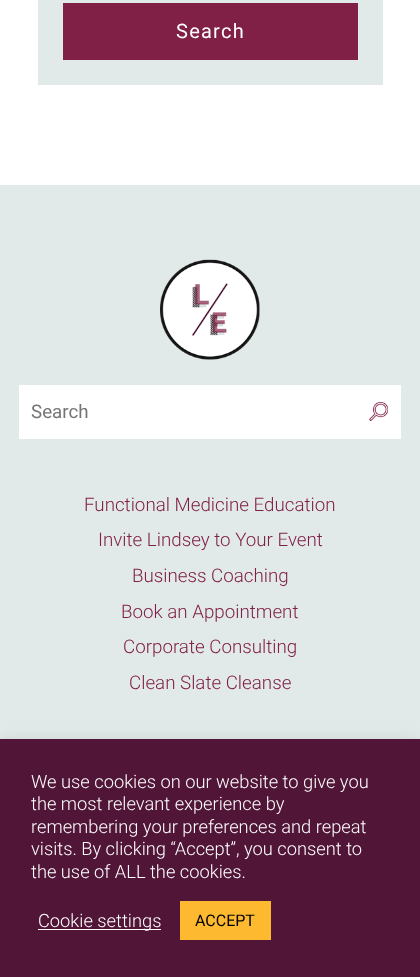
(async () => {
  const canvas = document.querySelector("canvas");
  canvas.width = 420;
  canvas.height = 977;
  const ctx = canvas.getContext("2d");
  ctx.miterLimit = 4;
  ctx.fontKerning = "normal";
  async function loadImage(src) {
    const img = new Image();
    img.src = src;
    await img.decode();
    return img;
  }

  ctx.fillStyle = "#ffffff";
  ctx.fillRect(0, 0, 420, 977);
  for (const [x, y, w, h, color] of [
    [38, 0, 345, 85, "#e2e9e9"],
    [63, 3, 295, 57, "#802046"],
    [0, 185, 420, 554, "#e2e9e9"],
  ]) {
    ctx.fillStyle = color;
    ctx.fillRect(x, y, w, h);
  }
  ctx.drawImage(await loadImage("img/1.png"), 160, 259, 100, 101);
  ctx.fillStyle = "#ffffff";
  ctx.fillRect(19, 385, 382, 54);
  ctx.drawImage(await loadImage("img/2.png"), 369, 402, 19, 19);
  ctx.fillStyle = "rgba(172, 171, 171, 0.3)";
  ctx.filter = "blur(6px)";
  ctx.beginPath();
  ctx.rect(0, 738, 420, 238);
  ctx.fill();
  ctx.filter = "none";
  for (const [x, y, w, h, color] of [
    [0, 739, 420, 238, "#511537"],
    [38, 929, 123, 1, "#ffffff"],
    [180, 901, 91, 39, "#fdba30"],
  ]) {
    ctx.fillStyle = color;
    ctx.fillRect(x, y, w, h);
  }
  ctx.letterSpacing = "1.25px";
  ctx.font = "20px Roboto";
  ctx.fillStyle = "#ffffff";
  ctx.fillText("Search", 176, 38);
  ctx.letterSpacing = "0px";
  ctx.font = "18.75px Roboto";
  ctx.fillStyle = "#757575";
  ctx.fillText("Search", 31, 418);
  ctx.font = "300 18.75px Roboto";
  ctx.fillStyle = "#802046";
  for (const [text, x, y] of [
    ["Functional Medicine Education", 84, 511],
    ["Invite Lindsey to Your Event", 98, 546],
    ["Business Coaching", 132, 582],
    ["Book an Appointment", 121, 618],
    ["Corporate Consulting", 123, 653],
    ["Clean Slate Cleanse", 129, 689],
  ]) {
    ctx.fillText(text, x, y);
  }
  ctx.font = "300 18.3px Roboto";
  ctx.fillStyle = "#ffffff";
  for (const [text, x, y] of [
    ["We use cookies on our website to give you", 31, 788],
    ["the most relevant experience by", 31, 810],
    ["remembering your preferences and repeat", 31, 833],
    ["visits. By clicking “Accept”, you consent to", 31, 855],
    ["the use of ALL the cookies.", 31, 878],
    ["Cookie settings", 38, 927],
  ]) {
    ctx.fillText(text, x, y);
  }
  ctx.font = "16px Roboto";
  ctx.fillStyle = "#000000";
  ctx.fillText("ACCEPT", 195, 926);
})();
